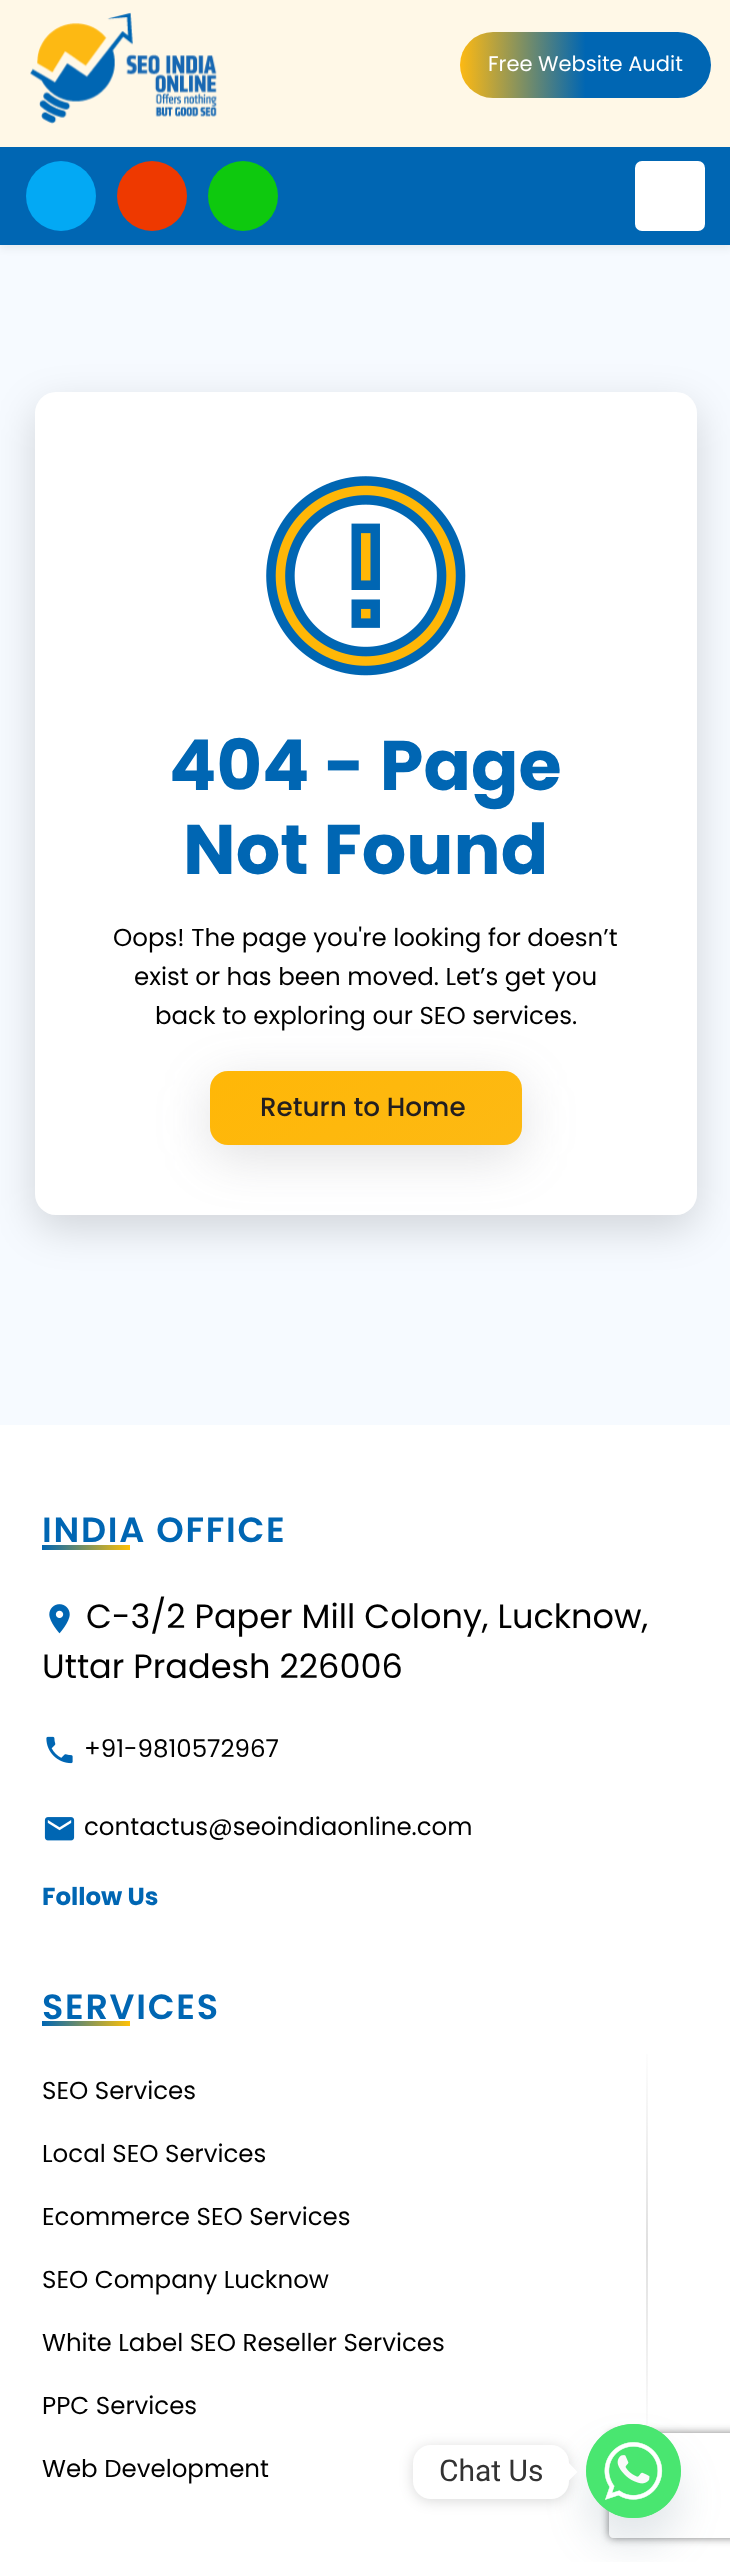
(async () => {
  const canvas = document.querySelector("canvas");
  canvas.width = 730;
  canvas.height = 2562;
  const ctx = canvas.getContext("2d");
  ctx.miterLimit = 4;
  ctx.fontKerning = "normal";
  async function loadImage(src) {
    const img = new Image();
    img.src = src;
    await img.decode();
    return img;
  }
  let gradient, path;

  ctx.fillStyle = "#ffffff";
  ctx.fillRect(0, 0, 730, 2562);
  ctx.fillStyle = "#f6faff";
  ctx.fillRect(0, 245, 730, 1180);
  ctx.fillStyle = "rgba(33, 37, 41, 0.07)";
  ctx.filter = "blur(3.5px)";
  ctx.beginPath();
  ctx.rect(0, 4, 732, 245);
  ctx.fill();
  ctx.filter = "none";
  ctx.fillStyle = "#fff8e7";
  ctx.fillRect(0, 0, 730, 147);
  ctx.drawImage(await loadImage("img/1.png"), 30, 12, 187, 112);
  gradient = ctx.createLinearGradient(460, 65, 711, 65);
  gradient.addColorStop(0, "#fdb913");
  gradient.addColorStop(0.5, "#0066b3");
  gradient.addColorStop(1, "#0066b3");
  ctx.fillStyle = gradient;
  ctx.beginPath();
  ctx.roundRect(460, 32, 251, 66, 33);
  ctx.fill();
  ctx.fillStyle = "#0066b3";
  ctx.fillRect(0, 147, 730, 98);
  ctx.fillStyle = "#03a9f4";
  ctx.beginPath();
  ctx.arc(61, 196, 35, 0, Math.PI * 2);
  ctx.fill();
  ctx.fillStyle = "#ee3900";
  ctx.beginPath();
  ctx.arc(152, 196, 35, 0, Math.PI * 2);
  ctx.fill();
  ctx.fillStyle = "#0ec90e";
  ctx.beginPath();
  ctx.arc(243, 196, 35, 0, Math.PI * 2);
  ctx.fill();
  ctx.fillStyle = "#ffffff";
  ctx.beginPath();
  ctx.roundRect(635, 161, 70, 70, 7);
  ctx.fill();
  ctx.fillStyle = "rgba(0, 0, 0, 0.15)";
  ctx.filter = "blur(21px)";
  ctx.beginPath();
  ctx.roundRect(35, 406, 662, 823, 21);
  ctx.fill();
  ctx.filter = "none";
  ctx.fillStyle = "#ffffff";
  ctx.beginPath();
  ctx.roundRect(35, 392, 662, 823, 21);
  ctx.fill();
  ctx.drawImage(await loadImage("img/2.png"), 266, 476, 200, 200);
  ctx.fillStyle = "rgba(100, 100, 111, 0.2)";
  ctx.filter = "blur(25.5px)";
  ctx.beginPath();
  ctx.roundRect(210, 1083, 312, 74, 18);
  ctx.fill();
  ctx.filter = "none";
  gradient = ctx.createLinearGradient(297, 1010, 434, 1206);
  gradient.addColorStop(0, "#ffb707");
  gradient.addColorStop(1, "#fdb913");
  ctx.fillStyle = gradient;
  ctx.beginPath();
  ctx.roundRect(210, 1071, 312, 74, 18);
  ctx.fill();
  gradient = ctx.createLinearGradient(42, 1548, 130, 1548);
  gradient.addColorStop(0, "#0066b3");
  gradient.addColorStop(1, "#ffc107");
  ctx.fillStyle = gradient;
  ctx.fillRect(42, 1545, 88, 5);
  ctx.drawImage(await loadImage("img/3.png"), 49, 1604, 21, 30);
  ctx.drawImage(await loadImage("img/4.png"), 46, 1736, 27, 28);
  ctx.drawImage(await loadImage("img/5.png"), 44, 1817, 31, 24);
  gradient = ctx.createLinearGradient(42, 2024, 130, 2024);
  gradient.addColorStop(0, "#0066b3");
  gradient.addColorStop(1, "#ffc107");
  ctx.fillStyle = gradient;
  ctx.fillRect(42, 2021, 88, 5);
  gradient = ctx.createLinearGradient(647, 2037, 647, 2457);
  gradient.addColorStop(0, "#ffffff");
  gradient.addColorStop(0.5, "#e0e0e0");
  gradient.addColorStop(1, "#ffffff");
  ctx.fillStyle = gradient;
  ctx.fillRect(646, 2054, 2, 373);
  ctx.save();
  path = new Path2D("M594 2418H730V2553H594ZM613 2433H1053C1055 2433 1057 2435 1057 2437V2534C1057 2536 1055 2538 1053 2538H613C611 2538 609 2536 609 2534V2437C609 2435 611 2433 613 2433Z");
  ctx.clip(path, "evenodd");
  ctx.fillStyle = "#808080";
  ctx.filter = "blur(4.5px)";
  ctx.beginPath();
  ctx.roundRect(609, 2433, 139, 105, 4);
  ctx.fill();
  ctx.filter = "none";
  ctx.restore();
  ctx.fillStyle = "rgba(73, 104, 126, 0.16)";
  ctx.filter = "blur(21px)";
  ctx.beginPath();
  ctx.roundRect(586, 2452, 95, 94, 47);
  ctx.fill();
  ctx.filter = "none";
  ctx.fillStyle = "#49e670";
  ctx.beginPath();
  ctx.roundRect(586, 2424, 95, 94, 47);
  ctx.fill();
  ctx.drawImage(await loadImage("img/6.png"), 586, 2424, 95, 94);
  ctx.fillStyle = "rgba(0, 0, 0, 0.15)";
  ctx.filter = "blur(7px)";
  ctx.beginPath();
  ctx.roundRect(413, 2447, 156, 54, 18);
  ctx.fill();
  ctx.filter = "none";
  ctx.fillStyle = "#ffffff";
  ctx.beginPath();
  ctx.roundRect(413, 2445, 156, 54, 18);
  ctx.fill();
  path = new Path2D("M569 2480.5V2463L577.5 2472Z");
  ctx.fill(path);
  ctx.font = "21px Poppins";
  ctx.fillText("Free Website Audit", 488, 71);
  ctx.font = "bold 70px Poppins";
  ctx.fillStyle = "#0066b3";
  ctx.fillText("404 - Page", 169, 790);
  ctx.fillText("Not Found", 183, 874);
  ctx.font = "24.5px Poppins";
  ctx.fillStyle = "#000000";
  for (const [text, x, y] of [
    ["Oops! The page you're looking for doesn’t", 113, 946],
    ["exist or has been moved. Let’s get you", 134, 985],
    ["back to exploring our SEO services.", 155, 1024],
  ]) {
    ctx.fillText(text, x, y);
  }
  ctx.font = "500 26.25px Poppins";
  ctx.fillStyle = "#231f20";
  ctx.fillText("Return to Home", 260, 1116);
  ctx.letterSpacing = "1.75px";
  ctx.font = "600 35px Poppins";
  ctx.fillStyle = "#0066b3";
  ctx.fillText("INDIA OFFICE", 42, 1542);
  ctx.letterSpacing = "0px";
  ctx.font = "33.6px Poppins";
  ctx.fillStyle = "#000000";
  ctx.fillText("C-3/2 Paper Mill Colony, Lucknow,", 86, 1628);
  ctx.fillText("Uttar Pradesh 226006", 42, 1678);
  ctx.font = "24.5px Poppins";
  ctx.fillText("+91-9810572967", 84, 1757);
  ctx.fillText("contactus@seoindiaonline.com", 84, 1835);
  ctx.font = "bold 24.5px Poppins";
  ctx.fillStyle = "#0066b3";
  ctx.fillText("Follow Us", 42, 1905);
  ctx.letterSpacing = "1.75px";
  ctx.font = "600 35px Poppins";
  ctx.fillText("SERVICES", 42, 2019);
  ctx.letterSpacing = "0px";
  ctx.font = "24.5px Poppins";
  ctx.fillStyle = "#000000";
  for (const [text, x, y] of [
    ["SEO Services", 42, 2099],
    ["Local SEO Services", 42, 2162],
    ["Ecommerce SEO Services", 42, 2225],
    ["SEO Company Lucknow", 42, 2288],
    ["White Label SEO Reseller Services", 42, 2351],
    ["PPC Services", 42, 2414],
    ["Web Development", 42, 2477],
  ]) {
    ctx.fillText(text, x, y);
  }
  ctx.font = "30px Roboto";
  ctx.fillStyle = "#333333";
  ctx.fillText("Chat Us", 439, 2481);
})();
